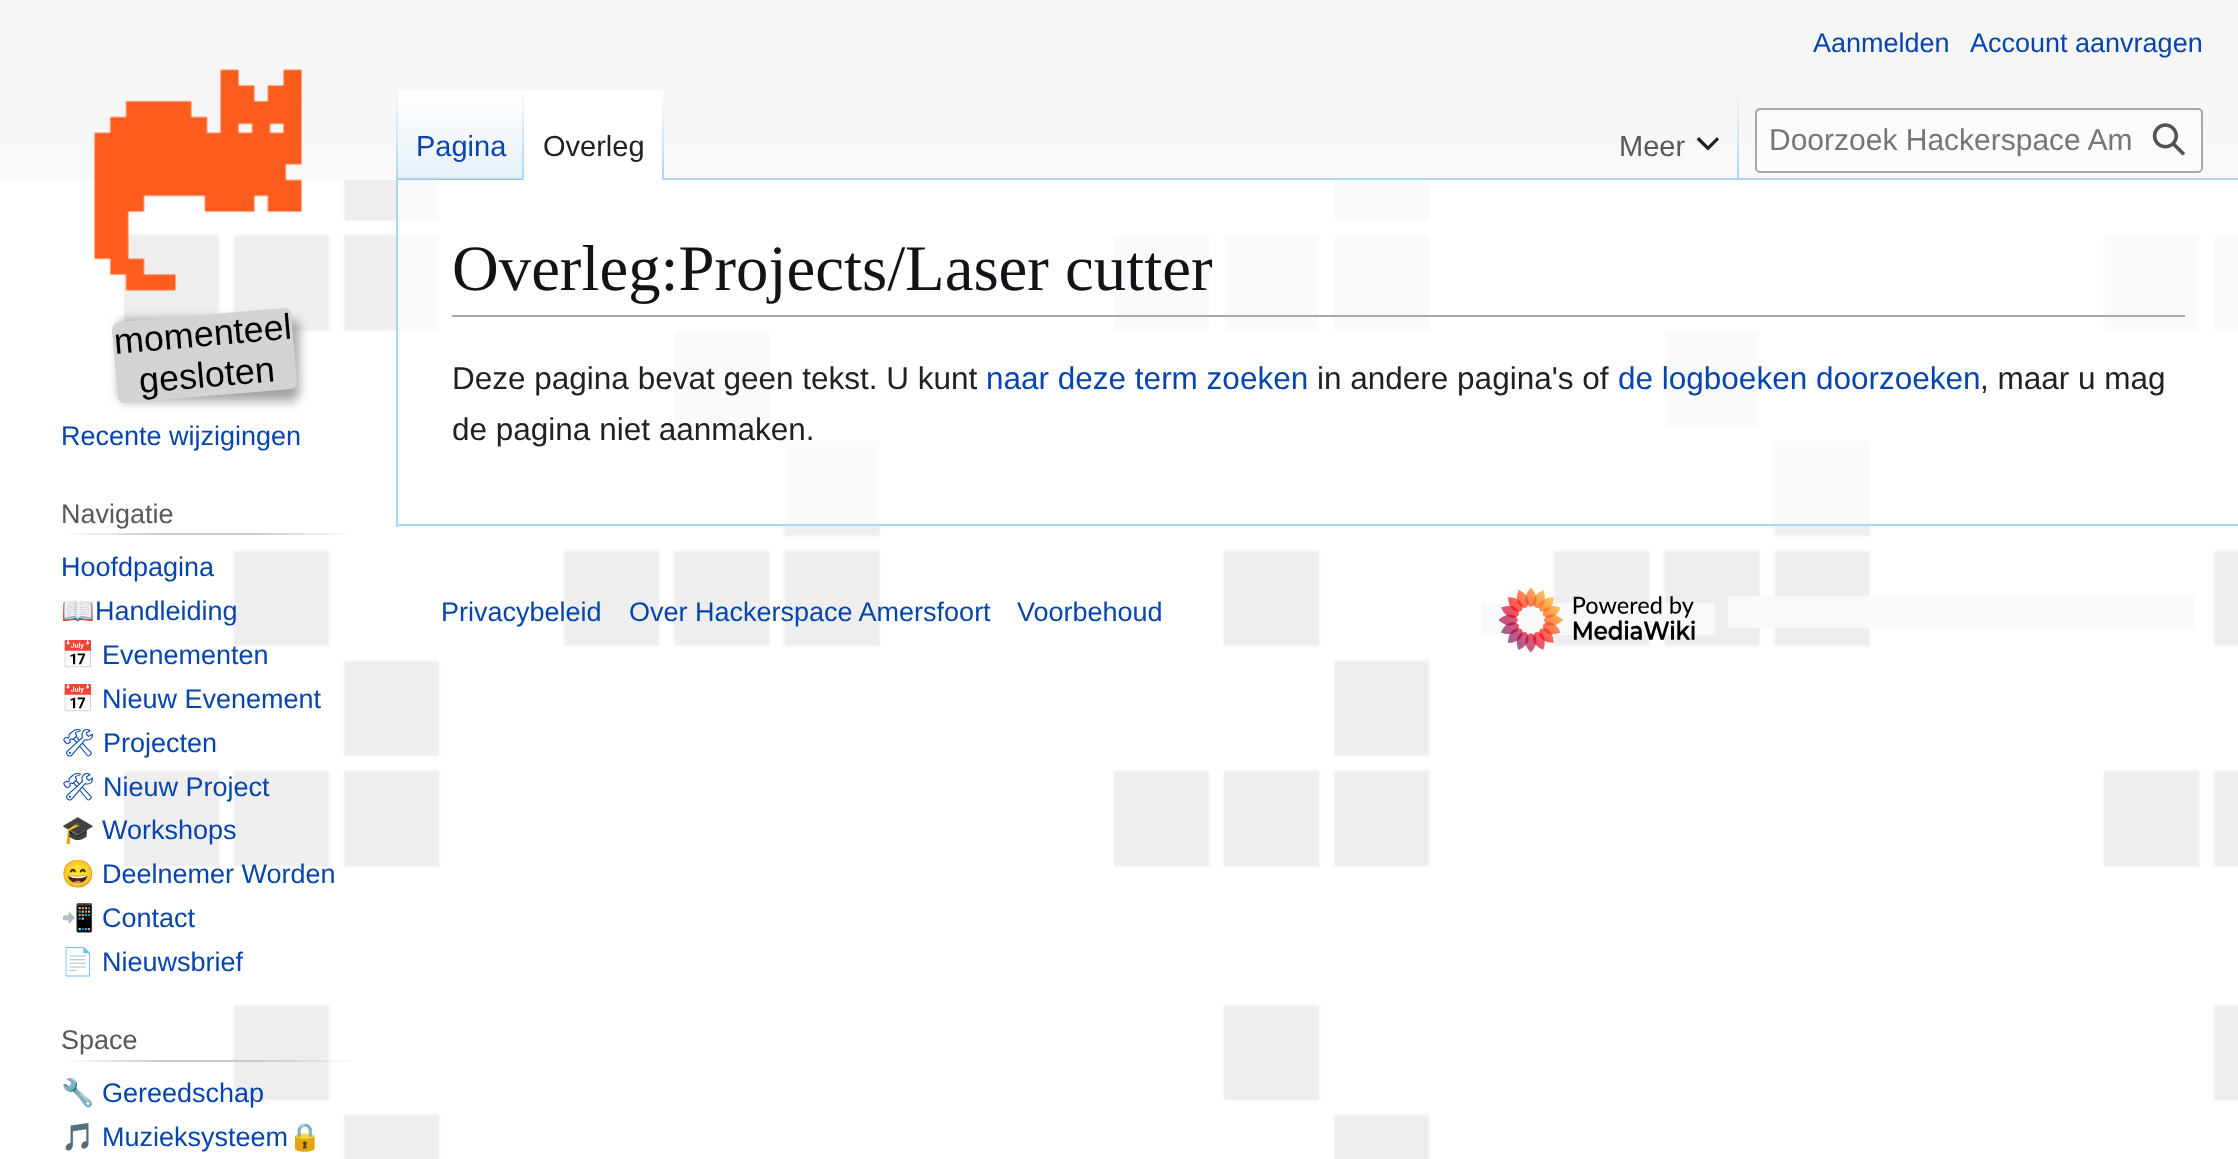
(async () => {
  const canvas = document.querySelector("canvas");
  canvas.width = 2238;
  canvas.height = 1159;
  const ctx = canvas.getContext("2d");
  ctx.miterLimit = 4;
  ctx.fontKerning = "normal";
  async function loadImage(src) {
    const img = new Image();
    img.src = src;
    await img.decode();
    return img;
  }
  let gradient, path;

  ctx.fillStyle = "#ffffff";
  ctx.fillRect(0, 0, 2238, 1159);
  ctx.drawImage(await loadImage("img/1.png"), 123, 180, 2115, 979);
  gradient = ctx.createLinearGradient(1119, 0, 1119, 180);
  gradient.addColorStop(0.5, "#f6f6f6");
  gradient.addColorStop(1, "#fafafa");
  ctx.fillStyle = gradient;
  ctx.fillRect(0, 0, 2238, 180);
  ctx.fillStyle = "#a7d7f9";
  ctx.fillRect(396, 524, 1842, 2);
  ctx.fillRect(396, 178, 2, 349);
  gradient = ctx.createLinearGradient(397, 90, 397, 180);
  gradient.addColorStop(0, "rgba(167, 215, 249, 0)");
  gradient.addColorStop(1, "#a7d7f9");
  ctx.fillStyle = gradient;
  ctx.fillRect(396, 90, 2, 90);
  gradient = ctx.createLinearGradient(461, 180, 461, 90);
  gradient.addColorStop(0, "#77c1f6");
  gradient.addColorStop(0.03, "#e8f2f8");
  gradient.addColorStop(1, "#ffffff");
  ctx.fillStyle = gradient;
  ctx.fillRect(398, 90, 126, 90);
  gradient = ctx.createLinearGradient(523, 90, 523, 180);
  gradient.addColorStop(0, "rgba(167, 215, 249, 0)");
  gradient.addColorStop(1, "#a7d7f9");
  ctx.fillStyle = gradient;
  ctx.fillRect(522, 90, 2, 90);
  ctx.fillStyle = "#ffffff";
  ctx.fillRect(524, 90, 138, 90);
  gradient = ctx.createLinearGradient(663, 90, 663, 180);
  gradient.addColorStop(0, "#ffffff");
  gradient.addColorStop(1, "#a7d7f9");
  ctx.fillStyle = gradient;
  ctx.fillRect(662, 90, 2, 90);
  ctx.fillStyle = "#a7d7f9";
  ctx.fillRect(664, 178, 1574, 2);
  gradient = ctx.createLinearGradient(1738, 90, 1738, 180);
  gradient.addColorStop(0, "rgba(167, 215, 249, 0)");
  gradient.addColorStop(1, "#a7d7f9");
  ctx.fillStyle = gradient;
  ctx.fillRect(1737, 90, 2, 90);
  ctx.fillStyle = "#202122";
  path = new Path2D("M1719 139.5L1717 137L1708 146L1699 137L1696.5 139.5L1708 150.5Z");
  ctx.fill(path);
  ctx.fillStyle = "rgba(255, 255, 255, 0.5)";
  ctx.beginPath();
  ctx.roundRect(1756, 109, 446, 63, 4);
  ctx.fill();
  ctx.strokeStyle = "#a2a9b1";
  ctx.lineWidth = 2;
  ctx.stroke();
  ctx.drawImage(await loadImage("img/2.png"), 2152, 123, 34, 33);
  ctx.drawImage(await loadImage("img/3.png"), 94, 69, 209, 222);
  ctx.fillStyle = "rgba(100, 100, 100, 0.6)";
  ctx.filter = "blur(5.5px)";
  ctx.beginPath();
  ctx.roundRect(119, 320, 180, 81, 7);
  ctx.fill();
  ctx.filter = "none";
  ctx.fillStyle = "#d3d3d3";
  path = new Path2D("M118 322L284 308C288 308 291 310 291 314L297 381C298 385 295 388 291 389L125 403C122 403 118 401 118 397L112 330C112 326 115 323 118 322Z");
  ctx.fill(path);
  gradient = ctx.createLinearGradient(61, 534, 356, 534);
  gradient.addColorStop(0, "#ffffff");
  gradient.addColorStop(0.33, "#c8ccd1");
  gradient.addColorStop(0.66, "#c8ccd1");
  gradient.addColorStop(1, "#ffffff");
  ctx.fillStyle = gradient;
  ctx.fillRect(61, 533, 295, 2);
  gradient = ctx.createLinearGradient(61, 1061, 356, 1061);
  gradient.addColorStop(0, "rgba(200, 204, 209, 0)");
  gradient.addColorStop(0.33, "#c8ccd1");
  gradient.addColorStop(0.66, "#c8ccd1");
  gradient.addColorStop(1, "rgba(200, 204, 209, 0)");
  ctx.fillStyle = gradient;
  ctx.fillRect(61, 1060, 295, 2);
  for (const [x, y, w, h, color] of [
    [398, 180, 1840, 344, "rgba(255, 255, 255, 0.7)"],
    [452, 315, 1733, 2, "#a2a9b1"],
    [1481, 603, 234, 32, "#f8f9fa"],
  ]) {
    ctx.fillStyle = color;
    ctx.fillRect(x, y, w, h);
  }
  ctx.drawImage(await loadImage("img/4.png"), 1499, 587, 196, 66);
  ctx.fillRect(1728, 596, 466, 32);
  ctx.font = "27px Liberation Sans";
  ctx.fillStyle = "#0645ad";
  ctx.fillText("Aanmelden", 1813, 52);
  ctx.fillText("Account aanvragen", 1970, 52);
  ctx.font = "29px Liberation Sans";
  ctx.fillText("Pagina", 416, 156);
  ctx.fillStyle = "#202122";
  ctx.fillText("Overleg", 543, 156);
  ctx.fillStyle = "#54595d";
  ctx.fillText("Meer", 1619, 156);
  ctx.font = "30px Liberation Sans";
  ctx.fillStyle = "#72777d";
  ctx.fillText("Doorzoek Hackerspace Am", 1769, 150);
  ctx.font = "36px Liberation Sans";
  ctx.fillStyle = "#000000";
  ctx.save();
  ctx.translate(115, 354);
  ctx.rotate(-5 * Math.PI / 180);
  ctx.fillText("momenteel", 0, 0);
  ctx.restore();
  ctx.save();
  ctx.translate(140, 393);
  ctx.rotate(-5 * Math.PI / 180);
  ctx.fillText("gesloten", 0, 0);
  ctx.restore();
  ctx.font = "27px Liberation Sans";
  ctx.fillStyle = "#0645ad";
  ctx.fillText("Recente wijzigingen", 61, 445);
  ctx.fillStyle = "#54595d";
  ctx.fillText("Navigatie", 61, 523);
  ctx.fillStyle = "#0645ad";
  ctx.fillText("Hoofdpagina", 61, 576);
  ctx.font = "27px Noto Color Emoji";
  ctx.fillText("📖", 61, 620);
  ctx.font = "27px Liberation Sans";
  ctx.fillText("Handleiding", 95, 620);
  ctx.font = "27px Noto Color Emoji";
  ctx.fillText("📅", 61, 664);
  ctx.font = "27px Liberation Sans";
  ctx.fillText("Evenementen", 102, 664);
  ctx.font = "27px Noto Color Emoji";
  ctx.fillText("📅", 61, 708);
  ctx.font = "27px Liberation Sans";
  ctx.fillText("Nieuw Evenement", 102, 708);
  ctx.font = "27px Noto Emoji";
  ctx.fillText("🛠", 61, 752);
  ctx.font = "27px Liberation Sans";
  ctx.fillText("Projecten", 103, 752);
  ctx.font = "27px Noto Emoji";
  ctx.fillText("🛠", 61, 796);
  ctx.font = "27px Liberation Sans";
  ctx.fillText("Nieuw Project", 103, 796);
  ctx.font = "27px Noto Color Emoji";
  ctx.fillText("🎓", 61, 839);
  ctx.font = "27px Liberation Sans";
  ctx.fillText("Workshops", 102, 839);
  ctx.font = "27px Noto Color Emoji";
  ctx.fillText("😄", 61, 883);
  ctx.font = "27px Liberation Sans";
  ctx.fillText("Deelnemer Worden", 102, 883);
  ctx.font = "27px Noto Color Emoji";
  ctx.fillText("📲", 61, 927);
  ctx.font = "27px Liberation Sans";
  ctx.fillText("Contact", 102, 927);
  ctx.font = "27px Noto Color Emoji";
  ctx.fillText("📄", 61, 971);
  ctx.font = "27px Liberation Sans";
  ctx.fillText("Nieuwsbrief", 102, 971);
  ctx.fillStyle = "#54595d";
  ctx.fillText("Space", 61, 1049);
  ctx.font = "27px Noto Color Emoji";
  ctx.fillStyle = "#0645ad";
  ctx.fillText("🔧", 61, 1102);
  ctx.font = "27px Liberation Sans";
  ctx.fillText("Gereedschap", 102, 1102);
  ctx.font = "27px Noto Color Emoji";
  ctx.fillText("🎵", 61, 1146);
  ctx.font = "27px Liberation Sans";
  ctx.fillText("Muzieksysteem", 102, 1146);
  ctx.font = "27px Noto Color Emoji";
  ctx.fillText("🔒", 288, 1146);
  ctx.font = "64.75px Liberation Serif";
  ctx.fillStyle = "#101418";
  ctx.fillText("Overleg:Projects/Laser cutter", 452, 290);
  ctx.font = "31.5px Liberation Sans";
  ctx.fillStyle = "#202122";
  ctx.fillText("Deze pagina bevat geen tekst. U kunt", 452, 389);
  ctx.fillStyle = "#0645ad";
  ctx.fillText("naar deze term zoeken", 986, 389);
  ctx.fillStyle = "#202122";
  ctx.fillText("in andere pagina's of", 1317, 389);
  ctx.fillStyle = "#0645ad";
  ctx.fillText("de logboeken doorzoeken", 1618, 389);
  ctx.fillStyle = "#202122";
  ctx.fillText(", maar u mag", 1980, 389);
  ctx.fillText("de pagina niet aanmaken.", 452, 440);
  ctx.font = "27px Liberation Sans";
  ctx.fillStyle = "#0645ad";
  for (const [text, x, y] of [
    ["Privacybeleid", 441, 621],
    ["Over Hackerspace Amersfoort", 629, 621],
    ["Voorbehoud", 1017, 621],
  ]) {
    ctx.fillText(text, x, y);
  }
})();
